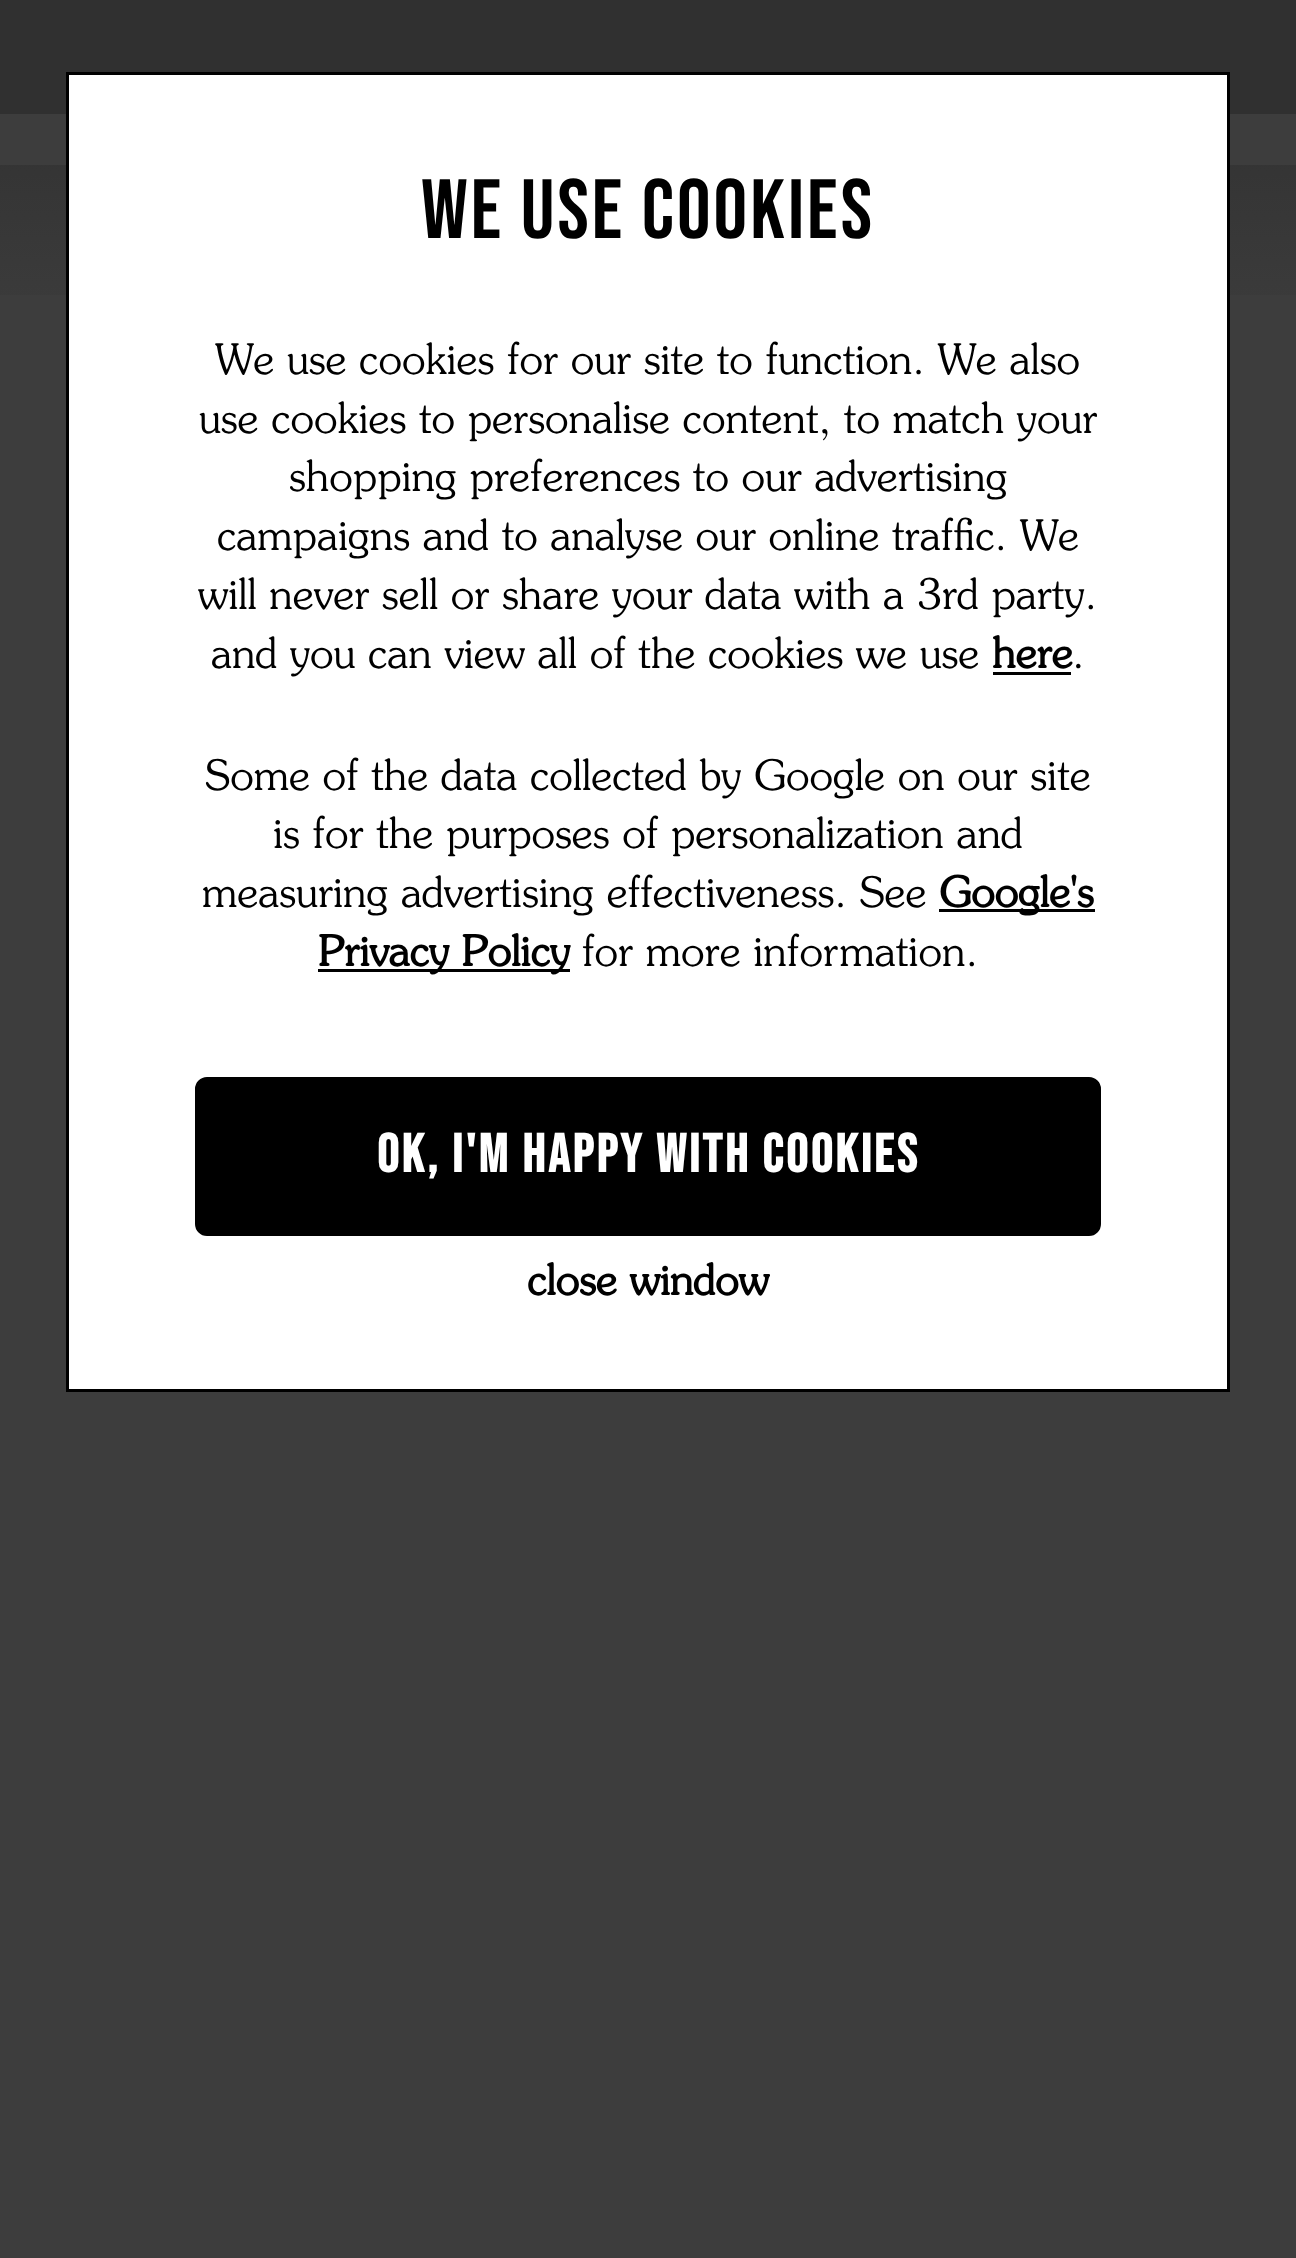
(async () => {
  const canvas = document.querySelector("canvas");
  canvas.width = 1296;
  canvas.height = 2258;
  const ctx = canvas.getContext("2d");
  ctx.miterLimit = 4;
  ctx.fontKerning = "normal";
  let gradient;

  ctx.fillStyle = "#3d3d3d";
  ctx.fillRect(0, 0, 1296, 2258);
  ctx.fillStyle = "#303030";
  ctx.fillRect(0, 0, 1296, 114);
  gradient = ctx.createLinearGradient(648, 61, 648, 372);
  gradient.addColorStop(0, "#303030");
  gradient.addColorStop(0.93, "#3d3d3d");
  ctx.fillStyle = gradient;
  ctx.fillRect(0, 165, 1296, 130);
  ctx.fillStyle = "#ffffff";
  ctx.beginPath();
  ctx.rect(67.5, 73.5, 1161, 1317);
  ctx.fill();
  ctx.strokeStyle = "#000000";
  ctx.lineWidth = 3;
  ctx.stroke();
  for (const [x, y, w, h, color] of [
    [993, 672, 78, 3, "#000000"],
    [939, 909, 156, 3, "#000000"],
    [318, 969, 252, 3, "#000000"],
  ]) {
    ctx.fillStyle = color;
    ctx.fillRect(x, y, w, h);
  }
  ctx.beginPath();
  ctx.roundRect(196.5, 1078.5, 903, 156, 10.5);
  ctx.fill();
  ctx.stroke();
  ctx.letterSpacing = "3px";
  ctx.font = "84px Bebas Neue";
  ctx.fillText("We use cookies", 421, 238);
  ctx.letterSpacing = "0px";
  ctx.font = "300 42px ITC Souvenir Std";
  for (const [text, x, y] of [
    ["We use cookies for our site to function. We also", 215, 374],
    ["use cookies to personalise content, to match your", 199, 433],
    ["shopping preferences to our advertising", 289, 491],
    ["campaigns and to analyse our online traffic. We", 217, 550],
    ["will never sell or share your data with a 3rd party.", 198, 609],
    ["and you can view all of the cookies we use", 211, 668],
  ]) {
    ctx.fillText(text, x, y);
  }
  ctx.font = "bold 42px ITC Souvenir Std";
  ctx.fillText("here", 992, 668);
  ctx.font = "300 42px ITC Souvenir Std";
  for (const [text, x, y] of [
    [".", 1072, 668],
    ["Some of the data collected by Google on our site", 205, 790],
    ["is for the purposes of personalization and", 273, 848],
    ["measuring advertising effectiveness. See", 202, 907],
  ]) {
    ctx.fillText(text, x, y);
  }
  ctx.font = "bold 42px ITC Souvenir Std";
  ctx.fillText("Google's", 939, 907);
  ctx.fillText("Privacy Policy", 318, 966);
  ctx.font = "300 42px ITC Souvenir Std";
  ctx.fillText("for more information.", 582, 966);
  ctx.letterSpacing = "3px";
  ctx.font = "bold 54px Bebas Neue";
  ctx.fillStyle = "#ffffff";
  ctx.fillText("OK, I'm happy with Cookies", 377, 1172);
  ctx.letterSpacing = "0px";
  ctx.font = "bold 42px ITC Souvenir Std";
  ctx.fillStyle = "#000000";
  ctx.fillText("close window", 527, 1295);
})();
